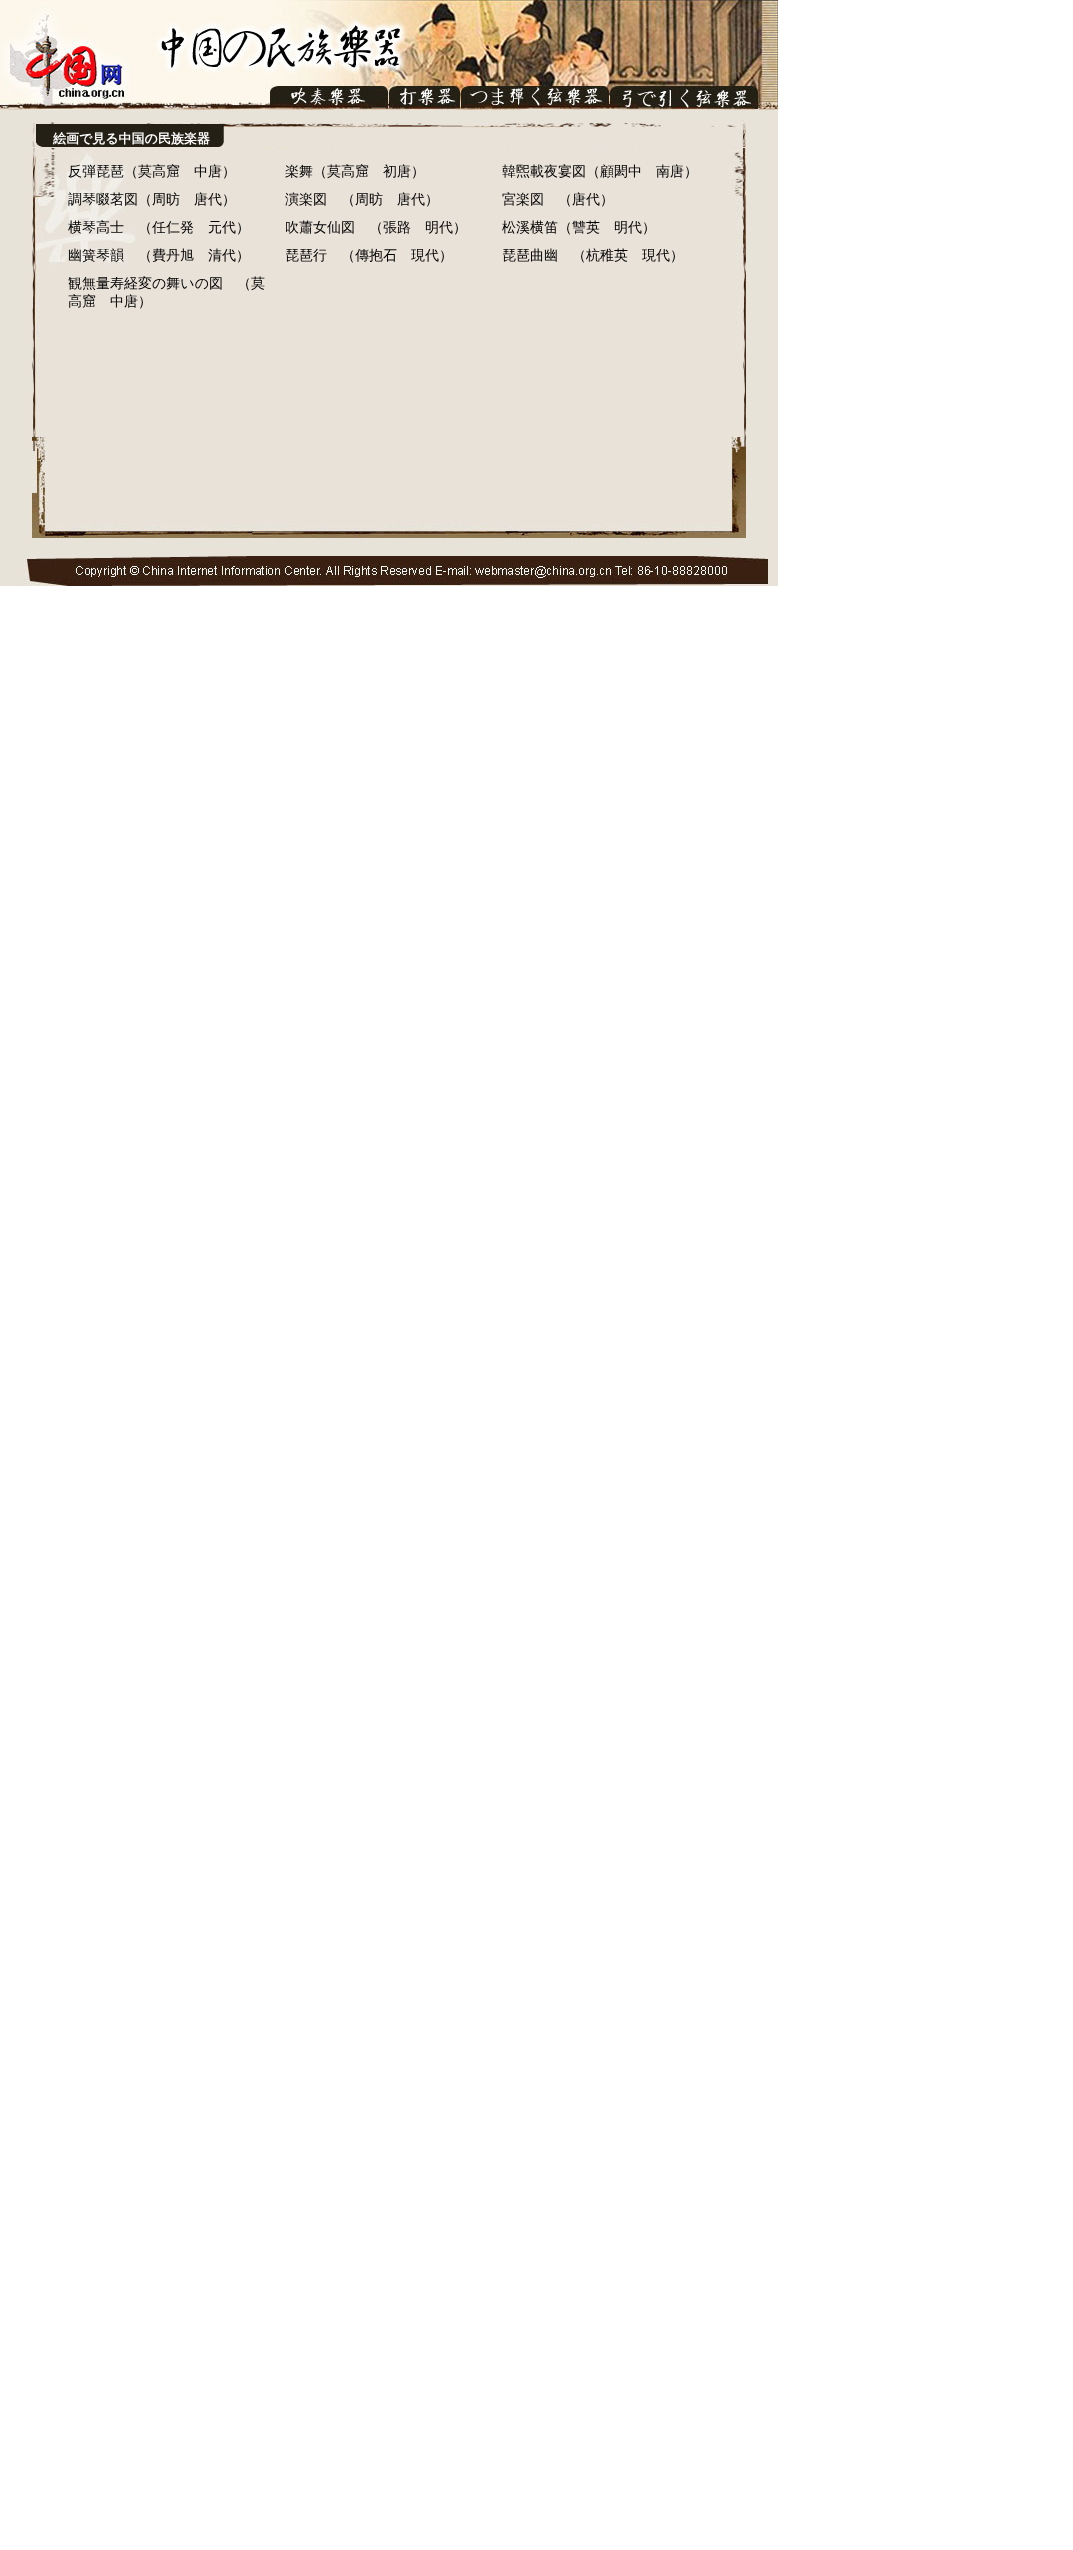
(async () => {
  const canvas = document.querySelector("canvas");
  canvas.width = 1073;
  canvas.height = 2550;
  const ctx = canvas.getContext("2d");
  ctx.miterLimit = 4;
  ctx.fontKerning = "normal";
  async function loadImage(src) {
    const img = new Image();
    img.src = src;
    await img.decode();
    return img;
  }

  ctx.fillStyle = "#ffffff";
  ctx.fillRect(0, 0, 1073, 2550);
  ctx.drawImage(await loadImage("img/1.png"), 0, 0, 266, 84);
  ctx.drawImage(await loadImage("img/2.png"), 266, 0, 268, 84);
  ctx.drawImage(await loadImage("img/3.png"), 534, 0, 244, 84);
  ctx.drawImage(await loadImage("img/4.png"), 0, 84, 778, 26);
  ctx.fillStyle = "#e8e3d9";
  ctx.fillRect(0, 110, 778, 438);
  ctx.drawImage(await loadImage("img/5.png"), 32, 120, 714, 28);
  ctx.drawImage(await loadImage("img/6.png"), 32, 148, 714, 390);
  ctx.drawImage(await loadImage("img/7.png"), 0, 548, 778, 38);
  ctx.font = "bold 13px WenQuanYi Zen Hei";
  ctx.fillStyle = "#ffffff";
  ctx.fillText("絵画で見る中国の民族楽器", 53, 143);
  ctx.font = "500 14px WenQuanYi Zen Hei";
  ctx.fillStyle = "#000000";
  for (const [text, x, y] of [
    ["反弾琵琶（莫高窟　中唐）", 68, 176],
    ["楽舞（莫高窟　初唐）", 285, 176],
    ["韓煕載夜宴図（顧閎中　南唐）", 502, 176],
    ["調琴啜茗図（周昉　唐代）", 68, 204],
    ["演楽図　（周昉　唐代）", 285, 204],
    ["宮楽図　（唐代）", 502, 204],
    ["横琴高士　（任仁発　元代）", 68, 232],
    ["吹蕭女仙図　（張路　明代）", 285, 232],
    ["松溪横笛（讐英　明代）", 502, 232],
    ["幽簧琴韻　（費丹旭　清代）", 68, 260],
    ["琵琶行　（傳抱石　現代）", 285, 260],
    ["琵琶曲幽　（杭稚英　現代）", 502, 260],
    ["観無量寿経変の舞いの図　（莫", 68, 288],
    ["高窟　中唐）", 68, 306],
  ]) {
    ctx.fillText(text, x, y);
  }
})();
